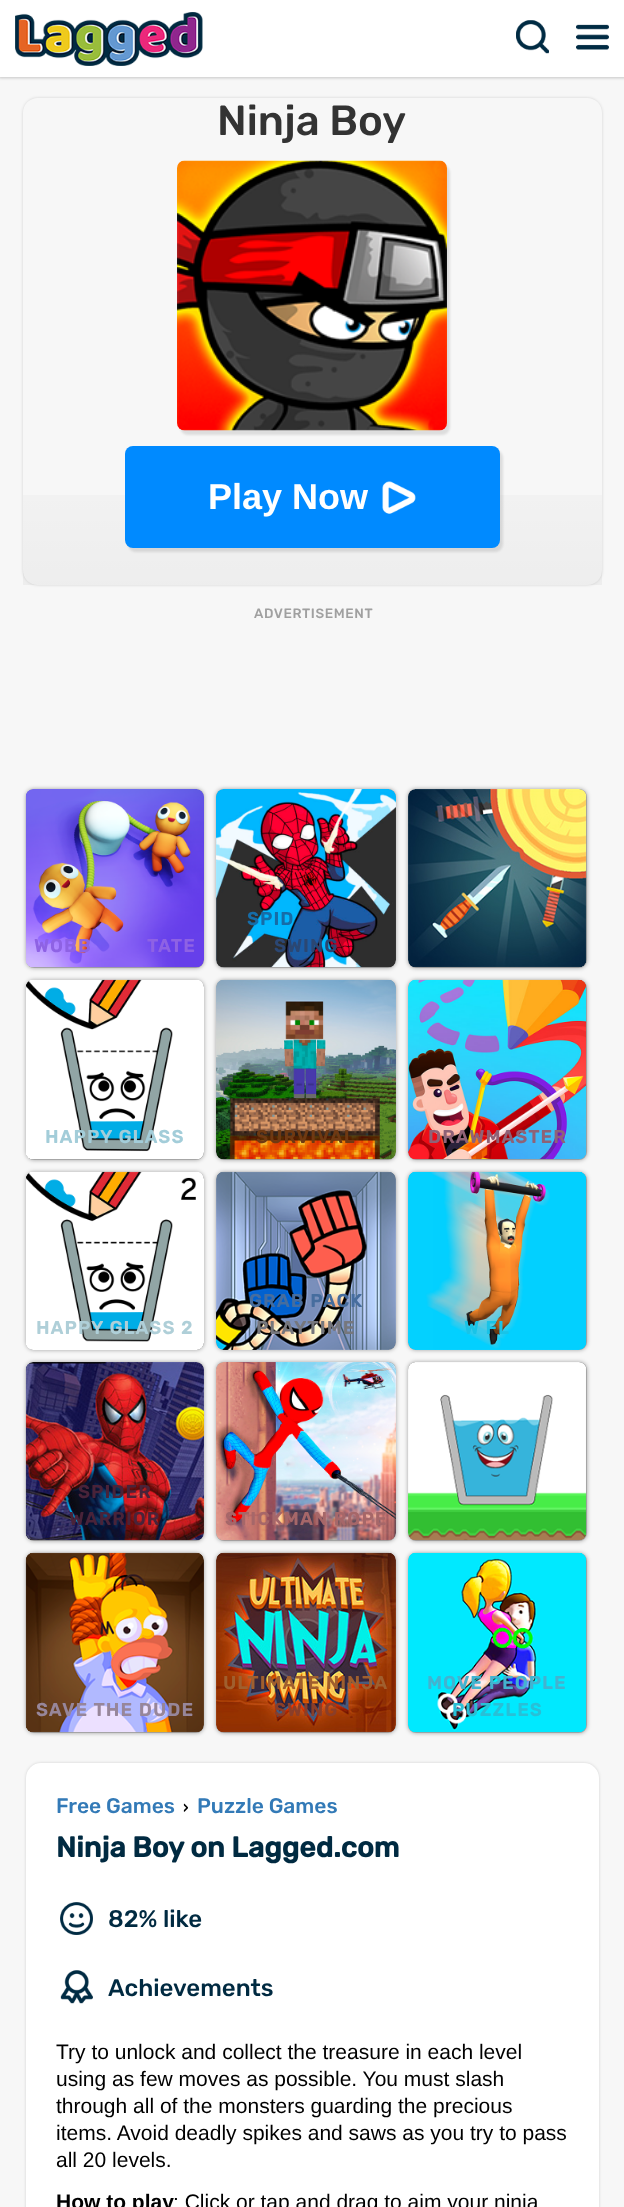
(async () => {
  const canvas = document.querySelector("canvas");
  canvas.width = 624;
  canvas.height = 2207;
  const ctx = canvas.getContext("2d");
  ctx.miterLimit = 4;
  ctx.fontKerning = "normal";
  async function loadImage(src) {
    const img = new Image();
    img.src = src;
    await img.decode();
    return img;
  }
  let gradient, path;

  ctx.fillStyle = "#f7f7f7";
  ctx.fillRect(0, 0, 624, 2207);
  ctx.fillStyle = "rgba(0, 0, 0, 0.2)";
  ctx.filter = "blur(1.5px)";
  ctx.beginPath();
  ctx.rect(-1, -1, 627, 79);
  ctx.fill();
  ctx.filter = "none";
  ctx.fillStyle = "#ffffff";
  ctx.fillRect(0, 0, 624, 77);
  ctx.drawImage(await loadImage("img/1.png"), 15, 12, 188, 54);
  ctx.drawImage(await loadImage("img/2.png"), 516, 20, 33, 34);
  ctx.drawImage(await loadImage("img/3.png"), 576, 24, 33, 26);
  ctx.save();
  path = new Path2D("M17 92H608V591H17ZM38 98H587C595.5 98 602 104.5 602 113V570C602 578.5 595.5 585 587 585H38C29.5 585 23 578.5 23 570V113C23 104.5 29.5 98 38 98Z");
  ctx.clip(path, "evenodd");
  ctx.fillStyle = "rgba(0, 0, 0, 0.15)";
  ctx.filter = "blur(1.5px)";
  ctx.beginPath();
  ctx.roundRect(23, 98, 579, 487, 15);
  ctx.fill();
  ctx.filter = "none";
  ctx.restore();
  gradient = ctx.createLinearGradient(312, 97, 312, 585);
  gradient.addColorStop(0.6, "rgba(0, 0, 0, 0)");
  gradient.addColorStop(1, "rgba(0, 0, 0, 0.04)");
  ctx.fillStyle = gradient;
  ctx.fillRect(23, 495, 579, 90);
  ctx.fillStyle = "rgba(0, 0, 0, 0.1)";
  ctx.filter = "blur(1px)";
  ctx.beginPath();
  ctx.roundRect(180, 165, 270, 270, 8);
  ctx.fill();
  ctx.filter = "none";
  ctx.drawImage(await loadImage("img/4.png"), 177, 160, 270, 271);
  ctx.filter = "blur(1px)";
  ctx.beginPath();
  ctx.roundRect(128, 450, 375, 102, 8);
  ctx.fill();
  ctx.filter = "none";
  ctx.fillStyle = "#008aff";
  ctx.beginPath();
  ctx.roundRect(125, 446, 375, 102, 8);
  ctx.fill();
  ctx.drawImage(await loadImage("img/5.png"), 382, 481, 34, 33);
  ctx.fillStyle = "rgba(0, 0, 0, 0.35)";
  ctx.filter = "blur(2px)";
  ctx.beginPath();
  ctx.roundRect(26, 789, 178, 179, 8);
  ctx.fill();
  ctx.filter = "none";
  ctx.fillStyle = "rgba(0, 0, 0, 0.18)";
  ctx.beginPath();
  ctx.roundRect(26, 789, 178, 179, 8);
  ctx.fill();
  ctx.drawImage(await loadImage("img/6.png"), 25, 789, 179, 179);
  ctx.fillStyle = "rgba(0, 0, 0, 0.35)";
  ctx.filter = "blur(2px)";
  ctx.beginPath();
  ctx.roundRect(216, 789, 180, 179, 8);
  ctx.fill();
  ctx.filter = "none";
  ctx.fillStyle = "rgba(0, 0, 0, 0.18)";
  ctx.beginPath();
  ctx.roundRect(216, 789, 180, 179, 8);
  ctx.fill();
  ctx.drawImage(await loadImage("img/7.png"), 216, 789, 180, 179);
  ctx.fillStyle = "rgba(0, 0, 0, 0.35)";
  ctx.filter = "blur(2px)";
  ctx.beginPath();
  ctx.roundRect(408, 789, 179, 179, 8);
  ctx.fill();
  ctx.filter = "none";
  ctx.fillStyle = "rgba(0, 0, 0, 0.18)";
  ctx.beginPath();
  ctx.roundRect(408, 789, 179, 179, 8);
  ctx.fill();
  ctx.drawImage(await loadImage("img/8.png"), 408, 789, 179, 179);
  ctx.fillStyle = "rgba(0, 0, 0, 0.35)";
  ctx.filter = "blur(2px)";
  ctx.beginPath();
  ctx.roundRect(26, 980, 178, 180, 8);
  ctx.fill();
  ctx.filter = "none";
  ctx.fillStyle = "rgba(0, 0, 0, 0.18)";
  ctx.beginPath();
  ctx.roundRect(26, 980, 178, 180, 8);
  ctx.fill();
  ctx.drawImage(await loadImage("img/9.png"), 26, 979, 178, 181);
  ctx.fillStyle = "rgba(0, 0, 0, 0.35)";
  ctx.filter = "blur(2px)";
  ctx.beginPath();
  ctx.roundRect(216, 980, 180, 180, 8);
  ctx.fill();
  ctx.filter = "none";
  ctx.fillStyle = "rgba(0, 0, 0, 0.18)";
  ctx.beginPath();
  ctx.roundRect(216, 980, 180, 180, 8);
  ctx.fill();
  ctx.drawImage(await loadImage("img/10.png"), 216, 979, 180, 181);
  ctx.fillStyle = "rgba(0, 0, 0, 0.35)";
  ctx.filter = "blur(2px)";
  ctx.beginPath();
  ctx.roundRect(408, 980, 179, 180, 8);
  ctx.fill();
  ctx.filter = "none";
  ctx.fillStyle = "rgba(0, 0, 0, 0.18)";
  ctx.beginPath();
  ctx.roundRect(408, 980, 179, 180, 8);
  ctx.fill();
  ctx.drawImage(await loadImage("img/11.png"), 408, 979, 179, 181);
  ctx.fillStyle = "rgba(0, 0, 0, 0.35)";
  ctx.filter = "blur(2px)";
  ctx.beginPath();
  ctx.roundRect(26, 1172, 178, 178, 8);
  ctx.fill();
  ctx.filter = "none";
  ctx.fillStyle = "rgba(0, 0, 0, 0.18)";
  ctx.beginPath();
  ctx.roundRect(26, 1172, 178, 178, 8);
  ctx.fill();
  ctx.drawImage(await loadImage("img/12.png"), 26, 1171, 178, 179);
  ctx.fillStyle = "rgba(0, 0, 0, 0.35)";
  ctx.filter = "blur(2px)";
  ctx.beginPath();
  ctx.roundRect(216, 1172, 180, 178, 8);
  ctx.fill();
  ctx.filter = "none";
  ctx.fillStyle = "rgba(0, 0, 0, 0.18)";
  ctx.beginPath();
  ctx.roundRect(216, 1172, 180, 178, 8);
  ctx.fill();
  ctx.drawImage(await loadImage("img/13.png"), 216, 1171, 180, 179);
  ctx.fillStyle = "rgba(0, 0, 0, 0.35)";
  ctx.filter = "blur(2px)";
  ctx.beginPath();
  ctx.roundRect(408, 1172, 179, 178, 8);
  ctx.fill();
  ctx.filter = "none";
  ctx.fillStyle = "rgba(0, 0, 0, 0.18)";
  ctx.beginPath();
  ctx.roundRect(408, 1172, 179, 178, 8);
  ctx.fill();
  ctx.drawImage(await loadImage("img/14.png"), 408, 1171, 179, 179);
  ctx.fillStyle = "rgba(0, 0, 0, 0.35)";
  ctx.filter = "blur(2px)";
  ctx.beginPath();
  ctx.roundRect(26, 1362, 178, 179, 8);
  ctx.fill();
  ctx.filter = "none";
  ctx.fillStyle = "rgba(0, 0, 0, 0.18)";
  ctx.beginPath();
  ctx.roundRect(26, 1362, 178, 179, 8);
  ctx.fill();
  ctx.drawImage(await loadImage("img/15.png"), 25, 1362, 179, 179);
  ctx.fillStyle = "rgba(0, 0, 0, 0.35)";
  ctx.filter = "blur(2px)";
  ctx.beginPath();
  ctx.roundRect(216, 1362, 180, 179, 8);
  ctx.fill();
  ctx.filter = "none";
  ctx.fillStyle = "rgba(0, 0, 0, 0.18)";
  ctx.beginPath();
  ctx.roundRect(216, 1362, 180, 179, 8);
  ctx.fill();
  ctx.drawImage(await loadImage("img/16.png"), 216, 1362, 180, 179);
  ctx.fillStyle = "rgba(0, 0, 0, 0.35)";
  ctx.filter = "blur(2px)";
  ctx.beginPath();
  ctx.roundRect(408, 1362, 179, 179, 8);
  ctx.fill();
  ctx.filter = "none";
  ctx.fillStyle = "rgba(0, 0, 0, 0.18)";
  ctx.beginPath();
  ctx.roundRect(408, 1362, 179, 179, 8);
  ctx.fill();
  ctx.drawImage(await loadImage("img/17.png"), 408, 1362, 179, 179);
  ctx.fillStyle = "rgba(0, 0, 0, 0.35)";
  ctx.filter = "blur(2px)";
  ctx.beginPath();
  ctx.roundRect(26, 1553, 178, 180, 8);
  ctx.fill();
  ctx.filter = "none";
  ctx.fillStyle = "rgba(0, 0, 0, 0.18)";
  ctx.beginPath();
  ctx.roundRect(26, 1553, 178, 180, 8);
  ctx.fill();
  ctx.drawImage(await loadImage("img/18.png"), 25, 1552, 179, 181);
  ctx.fillStyle = "rgba(0, 0, 0, 0.35)";
  ctx.filter = "blur(2px)";
  ctx.beginPath();
  ctx.roundRect(216, 1553, 180, 180, 8);
  ctx.fill();
  ctx.filter = "none";
  ctx.fillStyle = "rgba(0, 0, 0, 0.18)";
  ctx.beginPath();
  ctx.roundRect(216, 1553, 180, 180, 8);
  ctx.fill();
  ctx.drawImage(await loadImage("img/19.png"), 216, 1552, 180, 181);
  ctx.fillStyle = "rgba(0, 0, 0, 0.35)";
  ctx.filter = "blur(2px)";
  ctx.beginPath();
  ctx.roundRect(408, 1553, 179, 180, 8);
  ctx.fill();
  ctx.filter = "none";
  ctx.fillStyle = "rgba(0, 0, 0, 0.18)";
  ctx.beginPath();
  ctx.roundRect(408, 1553, 179, 180, 8);
  ctx.fill();
  ctx.drawImage(await loadImage("img/20.png"), 408, 1552, 179, 181);
  ctx.fillStyle = "rgba(0, 0, 0, 0.15)";
  ctx.filter = "blur(1.5px)";
  ctx.beginPath();
  ctx.roundRect(26, 1763, 573, 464, 15);
  ctx.fill();
  ctx.filter = "none";
  ctx.fillStyle = "#ffffff";
  ctx.beginPath();
  ctx.roundRect(26, 1763, 573, 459, 15);
  ctx.fill();
  ctx.drawImage(await loadImage("img/21.png"), 60, 1902, 33, 33);
  ctx.drawImage(await loadImage("img/22.png"), 60, 1970, 33, 34);
  ctx.font = "500 42px Rubik";
  ctx.fillStyle = "#333333";
  ctx.fillText("Ninja Boy", 217, 135);
  ctx.font = "bold 36px Liberation Sans";
  ctx.fillStyle = "#ffffff";
  ctx.fillText("Play Now", 208, 509);
  ctx.letterSpacing = "0.6px";
  ctx.font = "500 13.5px Rubik";
  ctx.fillStyle = "#a0a0a0";
  ctx.fillText("ADVERTISEMENT", 254, 618);
  ctx.letterSpacing = "1.5px";
  ctx.font = "bold 18px Rubik";
  ctx.fillStyle = "#8e62e4";
  ctx.fillText("WOBB", 34, 952);
  ctx.fillText("TATE", 147, 952);
  ctx.fillStyle = "#166ca7";
  ctx.fillText("SPID", 247, 925);
  ctx.fillStyle = "#2b4773";
  ctx.fillText("SWING", 274, 952);
  ctx.fillStyle = "#a3cdd9";
  ctx.fillText("HAPPY GLASS", 45, 1143);
  ctx.fillStyle = "#6f3912";
  ctx.fillText("SURVIVAL", 256, 1143);
  ctx.fillStyle = "#8f6277";
  ctx.fillText("DRAWMASTER", 428, 1143);
  ctx.fillStyle = "#afcfd8";
  ctx.fillText("HAPPY GLASS 2", 36, 1334);
  ctx.fillStyle = "#466d9e";
  ctx.fillText("GRAB PACK", 249, 1307);
  ctx.fillStyle = "#76777d";
  ctx.fillText("PLAYTIME", 256, 1334);
  ctx.fillStyle = "#18c4e8";
  ctx.fillText("W FL", 464, 1334);
  ctx.fillStyle = "#492339";
  ctx.fillText("SPIDER", 78, 1498);
  ctx.fillText("WARRIOR", 69, 1525);
  ctx.fillStyle = "#a66769";
  ctx.fillText("STICKMAN ROPE", 225, 1525);
  ctx.fillStyle = "#97869a";
  ctx.fillText("SAVE THE DUDE", 36, 1716);
  ctx.fillStyle = "#a05f2e";
  ctx.fillText("ULTIMATE NINJA", 223, 1689);
  ctx.fillStyle = "#8a3e29";
  ctx.fillText("SWING", 274, 1716);
  ctx.fillStyle = "#43b3d0";
  ctx.fillText("MOVE PEOPLE", 427, 1689);
  ctx.fillStyle = "#28c0d7";
  ctx.fillText("PUZZLES", 452, 1716);
  ctx.letterSpacing = "0px";
  ctx.font = "500 21px Rubik";
  ctx.fillStyle = "#337ab7";
  ctx.fillText("Free Games", 56, 1813);
  ctx.font = "500 16px Rubik";
  ctx.fillStyle = "#000000";
  ctx.fillText("›", 183, 1813);
  ctx.font = "500 21px Rubik";
  ctx.fillStyle = "#337ab7";
  ctx.fillText("Puzzle Games", 197, 1813);
  ctx.font = "bold 28.5px Rubik";
  ctx.fillStyle = "#002a41";
  ctx.fillText("Ninja Boy on Lagged.com", 56, 1857);
  ctx.font = "500 24px Rubik";
  ctx.fillText("82% like", 108, 1927);
  ctx.fillText("Achievements", 108, 1996);
  ctx.font = "21px Liberation Sans";
  ctx.fillStyle = "#000000";
  for (const [text, x, y] of [
    ["Try to unlock and collect the treasure in each level", 56, 2059],
    ["using as few moves as possible. You must slash", 56, 2086],
    ["through all of the monsters guarding the precious", 56, 2113],
    ["items. Avoid deadly spikes and saws as you try to pass", 56, 2140],
    ["all 20 levels.", 56, 2167],
  ]) {
    ctx.fillText(text, x, y);
  }
  ctx.font = "bold 21px Liberation Sans";
  ctx.fillText("How to play", 56, 2209);
  ctx.font = "21px Liberation Sans";
  ctx.fillText(": Click or tap and drag to aim your ninja", 173, 2209);
})();
